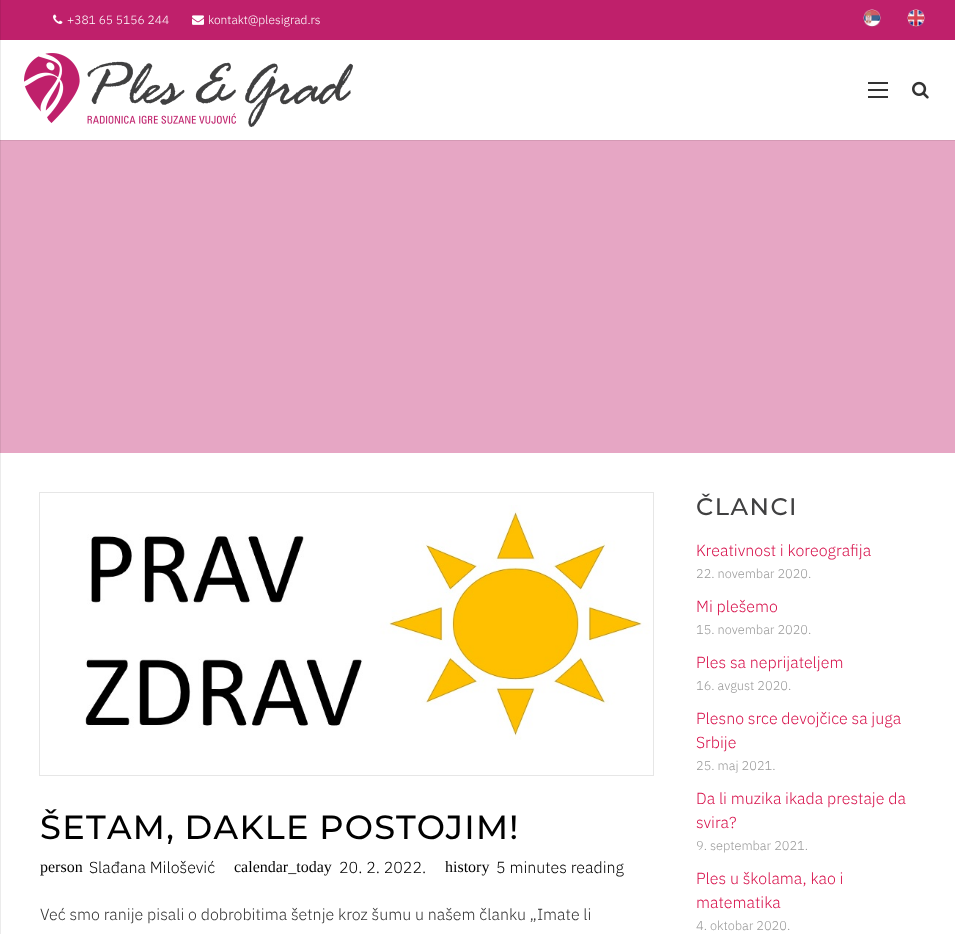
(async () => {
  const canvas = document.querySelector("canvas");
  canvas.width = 955;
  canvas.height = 934;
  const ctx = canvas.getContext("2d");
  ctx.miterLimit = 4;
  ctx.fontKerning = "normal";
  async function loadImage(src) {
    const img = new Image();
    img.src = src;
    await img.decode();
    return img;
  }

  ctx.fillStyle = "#ffffff";
  ctx.fillRect(0, 0, 955, 934);
  for (const [x, y, w, h, color] of [
    [0, 453, 1, 481, "#ebebeb"],
    [1, 0, 954, 40, "#bf206b"],
    [0, 0, 1, 40, "#b01d62"],
  ]) {
    ctx.fillStyle = color;
    ctx.fillRect(x, y, w, h);
  }
  ctx.drawImage(await loadImage("img/1.png"), 53, 14, 10, 10);
  ctx.drawImage(await loadImage("img/2.png"), 192, 15, 12, 10);
  ctx.drawImage(await loadImage("img/3.png"), 863, 9, 18, 18);
  ctx.drawImage(await loadImage("img/4.png"), 907, 9, 18, 18);
  for (const [x, y, w, h, color] of [
    [0, 140, 955, 1, "#d499b4"],
    [0, 140, 1, 1, "#c38da6"],
    [0, 40, 1, 100, "#ebebeb"],
  ]) {
    ctx.fillStyle = color;
    ctx.fillRect(x, y, w, h);
  }
  ctx.drawImage(await loadImage("img/5.png"), 24, 53, 329, 74);
  for (const [x, y, w, h, color] of [
    [868, 89, 20, 2, "#333333"],
    [868, 82, 20, 2, "#333333"],
    [868, 96, 20, 2, "#333333"],
  ]) {
    ctx.fillStyle = color;
    ctx.fillRect(x, y, w, h);
  }
  ctx.drawImage(await loadImage("img/6.png"), 912, 81, 17, 18);
  ctx.fillStyle = "#e6a6c4";
  ctx.fillRect(1, 141, 954, 312);
  ctx.fillStyle = "#d499b4";
  ctx.fillRect(0, 141, 1, 312);
  ctx.strokeStyle = "#e6e6e6";
  ctx.strokeRect(39.5, 492.5, 614, 283);
  ctx.drawImage(await loadImage("img/7.png"), 85, 505, 565, 235);
  ctx.font = "300 12px IBM Plex Sans";
  ctx.fillStyle = "#ffffff";
  ctx.fillText("+381 65 5156 244", 67, 24);
  ctx.fillText("kontakt@plesigrad.rs", 208, 24);
  ctx.letterSpacing = "1.3px";
  ctx.wordSpacing = "-1px";
  ctx.font = "500 33.6px Montserrat";
  ctx.fillStyle = "#000000";
  ctx.fillText("ŠETAM, DAKLE POSTOJIM!", 40, 839);
  ctx.letterSpacing = "0px";
  ctx.wordSpacing = "0px";
  ctx.font = "16px Liberation Serif";
  ctx.fillText("person", 40, 872);
  ctx.font = "300 16px IBM Plex Sans";
  ctx.fillText("Slađana Milošević", 89, 873);
  ctx.font = "16px Liberation Serif";
  ctx.fillText("calendar_today", 234, 872);
  ctx.font = "300 16px IBM Plex Sans";
  ctx.fillText("20. 2. 2022.", 339, 873);
  ctx.font = "16px Liberation Serif";
  ctx.fillText("history", 445, 872);
  ctx.font = "300 16px IBM Plex Sans";
  ctx.fillText("5 minutes reading", 496, 873);
  ctx.fillStyle = "#333333";
  ctx.fillText("Već smo ranije pisali o dobrobitima šetnje kroz šumu u našem članku „Imate li", 40, 920);
  ctx.letterSpacing = "1.5px";
  ctx.font = "500 24px Montserrat";
  ctx.fillStyle = "#404041";
  ctx.fillText("ČLANCI", 696, 515);
  ctx.letterSpacing = "0px";
  ctx.font = "300 16px IBM Plex Sans";
  ctx.fillStyle = "#d7114b";
  ctx.fillText("Kreativnost i koreografija", 696, 556);
  ctx.font = "300 12.75px IBM Plex Sans";
  ctx.fillStyle = "#999999";
  ctx.fillText("22. novembar 2020.", 696, 578);
  ctx.font = "300 16px IBM Plex Sans";
  ctx.fillStyle = "#d7114b";
  ctx.fillText("Mi plešemo", 696, 612);
  ctx.font = "300 12.75px IBM Plex Sans";
  ctx.fillStyle = "#999999";
  ctx.fillText("15. novembar 2020.", 696, 634);
  ctx.font = "300 16px IBM Plex Sans";
  ctx.fillStyle = "#d7114b";
  ctx.fillText("Ples sa neprijateljem", 696, 668);
  ctx.font = "300 12.75px IBM Plex Sans";
  ctx.fillStyle = "#999999";
  ctx.fillText("16. avgust 2020.", 696, 690);
  ctx.font = "300 16px IBM Plex Sans";
  ctx.fillStyle = "#d7114b";
  ctx.fillText("Plesno srce devojčice sa juga", 696, 724);
  ctx.fillText("Srbije", 696, 748);
  ctx.font = "300 12.75px IBM Plex Sans";
  ctx.fillStyle = "#999999";
  ctx.fillText("25. maj 2021.", 696, 770);
  ctx.font = "300 16px IBM Plex Sans";
  ctx.fillStyle = "#d7114b";
  ctx.fillText("Da li muzika ikada prestaje da", 696, 804);
  ctx.fillText("svira?", 696, 828);
  ctx.font = "300 12.75px IBM Plex Sans";
  ctx.fillStyle = "#999999";
  ctx.fillText("9. septembar 2021.", 696, 850);
  ctx.font = "300 16px IBM Plex Sans";
  ctx.fillStyle = "#d7114b";
  ctx.fillText("Ples u školama, kao i", 696, 884);
  ctx.fillText("matematika", 696, 908);
  ctx.font = "300 12.75px IBM Plex Sans";
  ctx.fillStyle = "#999999";
  ctx.fillText("4. oktobar 2020.", 696, 930);
})();
